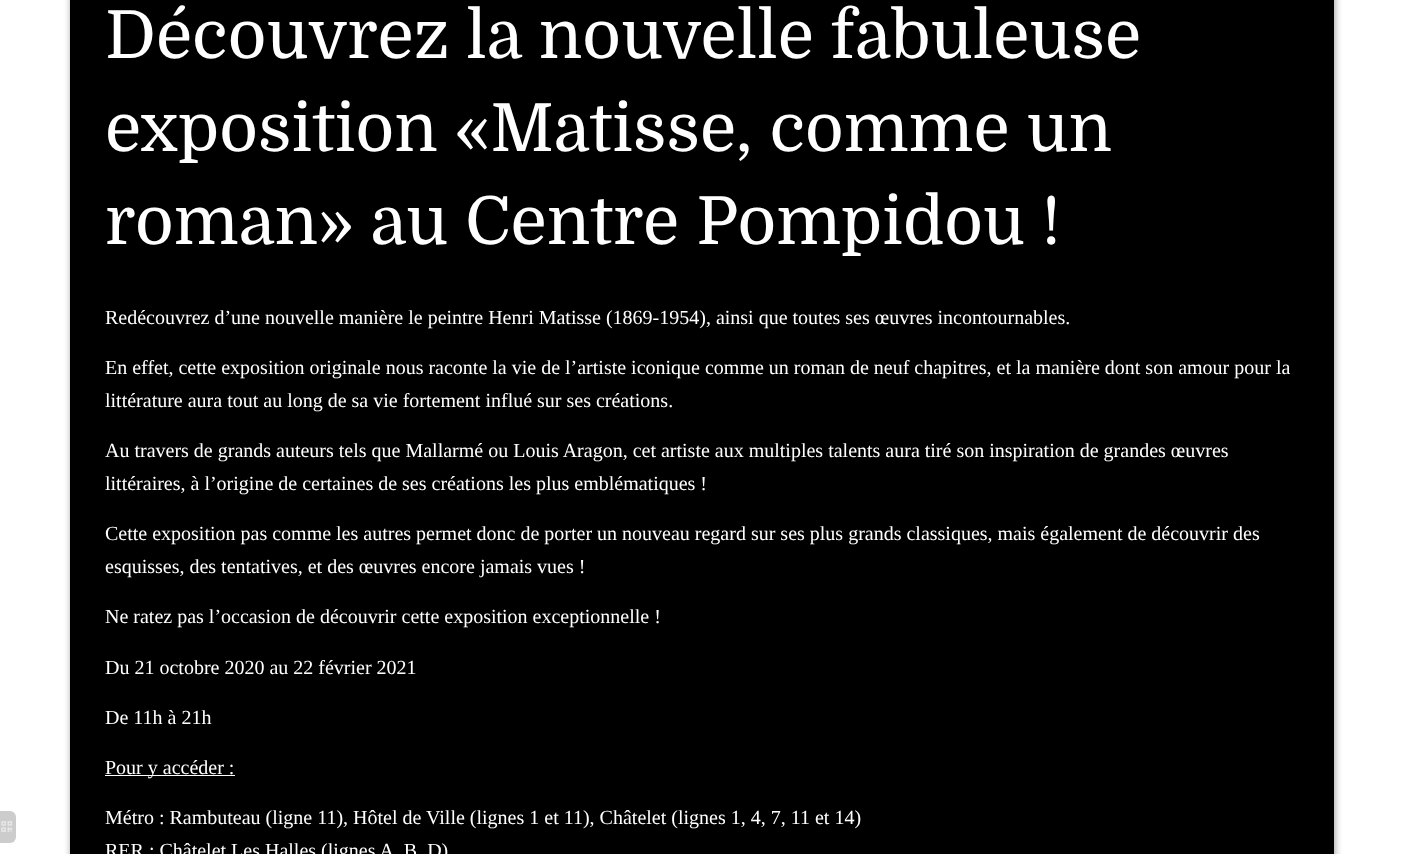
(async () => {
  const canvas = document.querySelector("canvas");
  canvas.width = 1403;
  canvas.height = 854;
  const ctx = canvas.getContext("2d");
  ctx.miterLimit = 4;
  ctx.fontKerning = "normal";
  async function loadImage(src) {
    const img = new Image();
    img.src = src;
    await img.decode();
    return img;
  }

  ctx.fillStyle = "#ffffff";
  ctx.fillRect(0, 0, 1403, 854);
  ctx.fillStyle = "#cccccc";
  ctx.beginPath();
  ctx.roundRect(0, 811, 16, 32, [0, 6, 6, 0]);
  ctx.fill();
  ctx.drawImage(await loadImage("img/1.png"), 1, 821, 12, 11);
  ctx.fillStyle = "rgba(0, 0, 0, 0.3)";
  ctx.filter = "blur(3px)";
  ctx.beginPath();
  ctx.rect(70, -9, 1266, 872);
  ctx.fill();
  ctx.filter = "none";
  ctx.fillStyle = "#000000";
  ctx.fillRect(70, 0, 1264, 854);
  ctx.fillStyle = "#ffffff";
  ctx.fillRect(105, 775, 130, 1);
  ctx.font = "66.5px Domine";
  for (const [text, x, y] of [
    ["Découvrez la nouvelle fabuleuse", 105, 58],
    ["exposition «Matisse, comme un", 105, 151],
    ["roman» au Centre Pompidou !", 105, 244],
  ]) {
    ctx.fillText(text, x, y);
  }
  ctx.font = "20px Liberation Serif";
  for (const [text, x, y] of [
    ["Redécouvrez d’une nouvelle manière le peintre Henri Matisse (1869-1954), ainsi que toutes ses œuvres incontournables.", 105, 324],
    ["En effet, cette exposition originale nous raconte la vie de l’artiste iconique comme un roman de neuf chapitres, et la manière dont son amour pour la", 105, 374],
    ["littérature aura tout au long de sa vie fortement influé sur ses créations.", 105, 407],
    ["Au travers de grands auteurs tels que Mallarmé ou Louis Aragon, cet artiste aux multiples talents aura tiré son inspiration de grandes œuvres", 105, 457],
    ["littéraires, à l’origine de certaines de ses créations les plus emblématiques !", 105, 490],
    ["Cette exposition pas comme les autres permet donc de porter un nouveau regard sur ses plus grands classiques, mais également de découvrir des", 105, 540],
    ["esquisses, des tentatives, et des œuvres encore jamais vues !", 105, 573],
    ["Ne ratez pas l’occasion de découvrir cette exposition exceptionnelle !", 105, 623],
    ["Du 21 octobre 2020 au 22 février 2021", 105, 674],
    ["De 11h à 21h", 105, 724],
    ["Pour y accéder :", 105, 774],
    ["Métro : Rambuteau (ligne 11), Hôtel de Ville (lignes 1 et 11), Châtelet (lignes 1, 4, 7, 11 et 14)", 105, 824],
    ["RER : Châtelet Les Halles (lignes A, B, D)", 105, 857],
  ]) {
    ctx.fillText(text, x, y);
  }
})();
